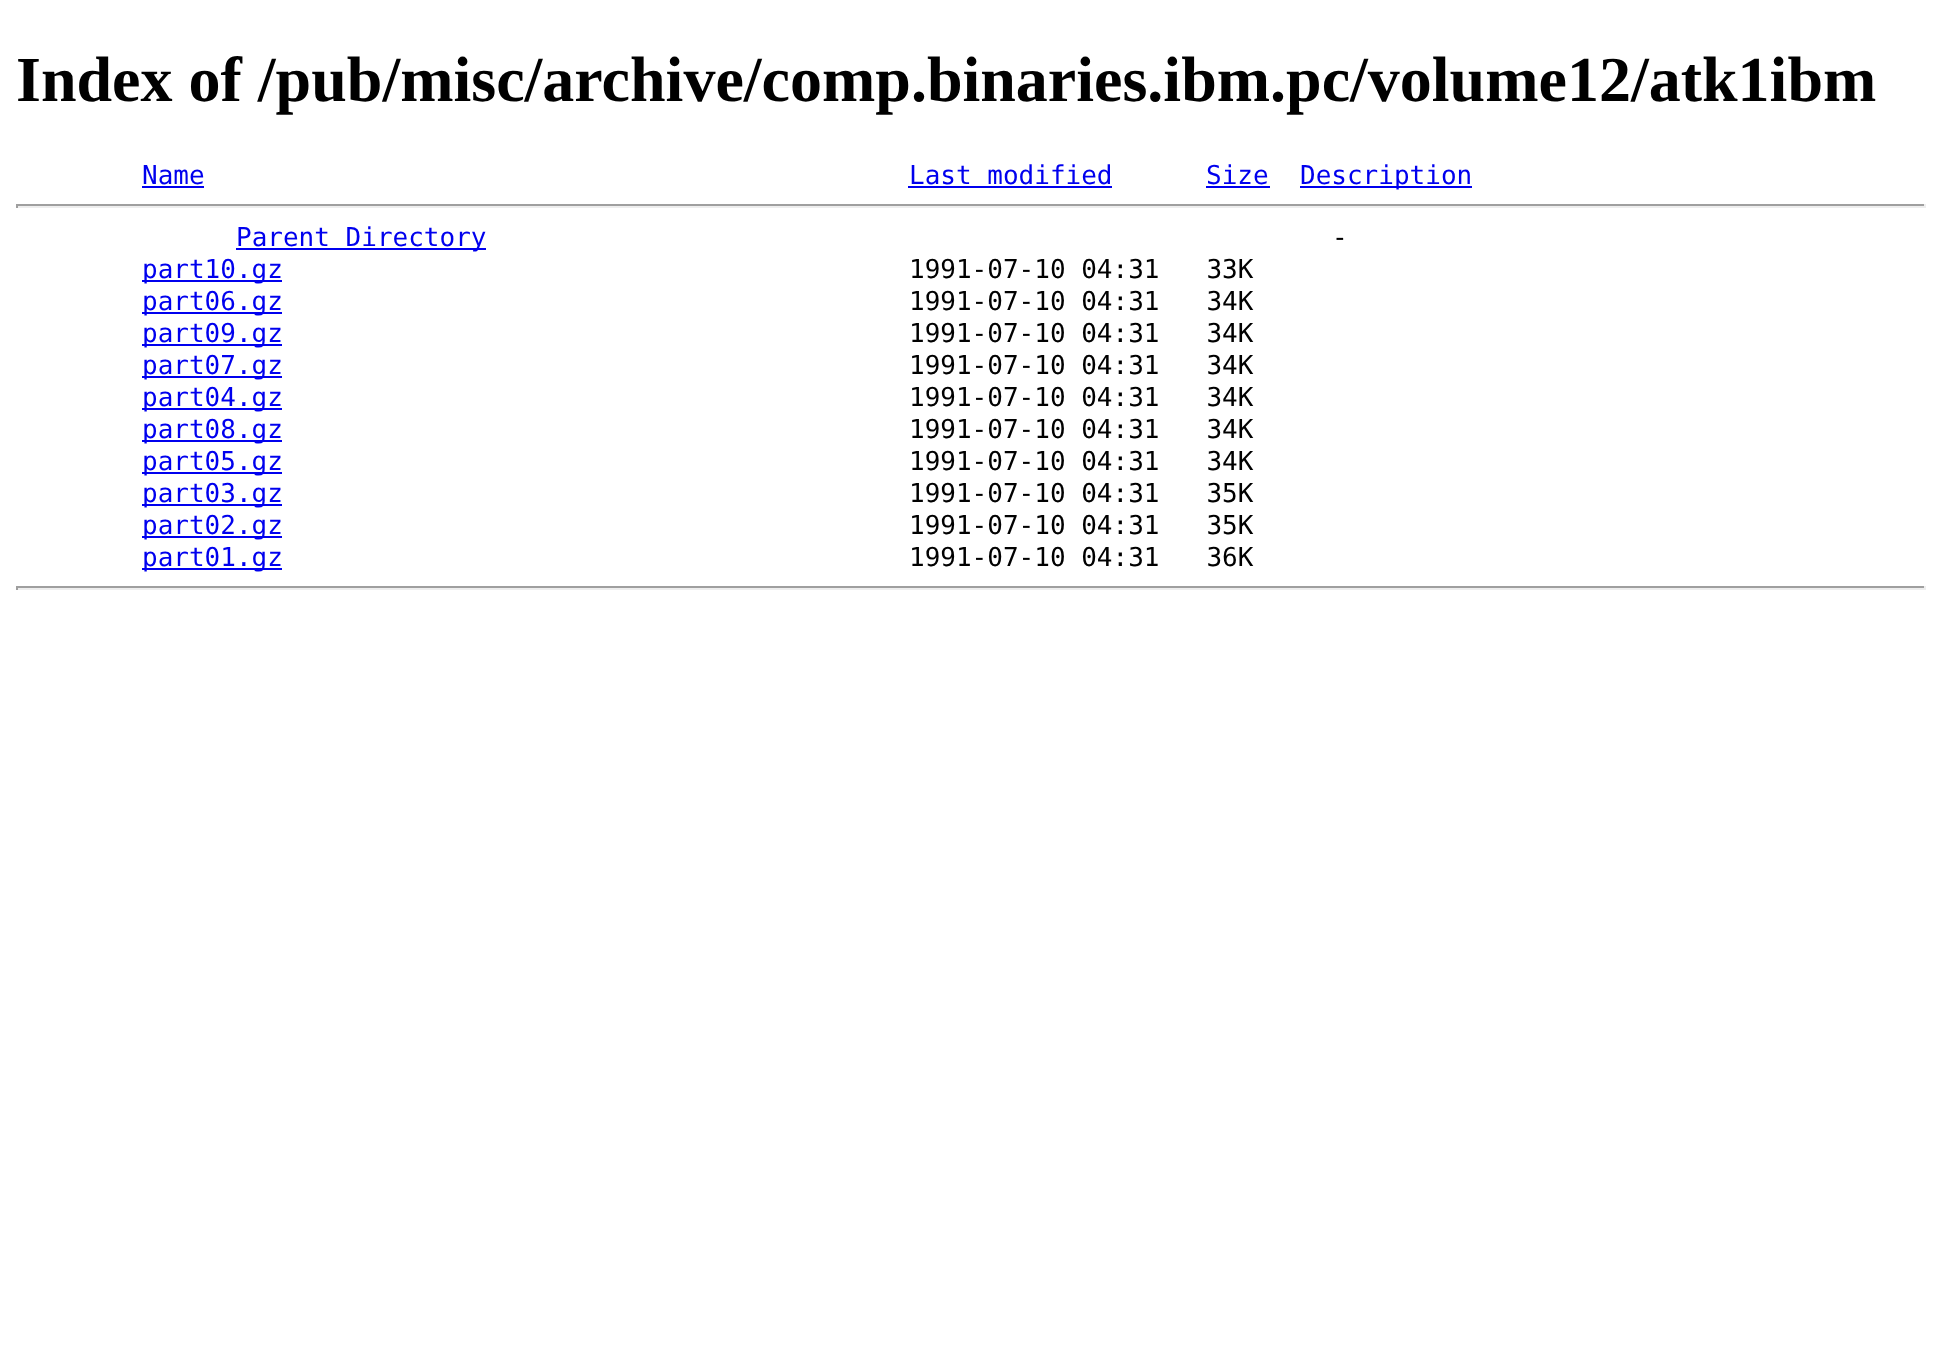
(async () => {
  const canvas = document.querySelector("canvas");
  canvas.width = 1941;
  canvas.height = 1360;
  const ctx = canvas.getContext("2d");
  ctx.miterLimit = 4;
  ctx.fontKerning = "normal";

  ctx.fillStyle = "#ffffff";
  ctx.fillRect(0, 0, 1941, 1360);
  for (const [x, y, w, h, color] of [
    [142, 186, 62, 2, "#0000ee"],
    [908, 186, 204, 2, "#0000ee"],
    [1206, 186, 64, 2, "#0000ee"],
    [1300, 186, 172, 2, "#0000ee"],
    [16, 204, 1910, 2, "#9f9f9f"],
    [1924, 204, 2, 4, "#eeeeee"],
    [16, 206, 1910, 2, "#eeeeee"],
    [16, 204, 2, 4, "#9f9f9f"],
    [236, 248, 250, 2, "#0000ee"],
    [142, 280, 140, 2, "#0000ee"],
    [142, 312, 140, 2, "#0000ee"],
    [142, 344, 140, 2, "#0000ee"],
    [142, 376, 140, 2, "#0000ee"],
    [142, 408, 140, 2, "#0000ee"],
    [142, 440, 140, 2, "#0000ee"],
    [142, 472, 140, 2, "#0000ee"],
    [142, 504, 140, 2, "#0000ee"],
    [142, 536, 140, 2, "#0000ee"],
    [142, 568, 140, 2, "#0000ee"],
    [16, 586, 1910, 2, "#9f9f9f"],
    [1924, 586, 2, 4, "#eeeeee"],
    [16, 588, 1910, 2, "#eeeeee"],
    [16, 586, 2, 4, "#9f9f9f"],
  ]) {
    ctx.fillStyle = color;
    ctx.fillRect(x, y, w, h);
  }
  ctx.font = "bold 64px Liberation Serif";
  ctx.fillStyle = "#000000";
  ctx.fillText("Index of /pub/misc/archive/comp.binaries.ibm.pc/volume12/atk1ibm", 16, 101);
  ctx.font = "26px DejaVu Sans Mono";
  ctx.fillStyle = "#0000ee";
  for (const [text, x, y] of [
    ["Name", 142, 184],
    ["Last modified", 909, 184],
    ["Size", 1206, 184],
    ["Description", 1300, 184],
    ["Parent Directory", 236, 246],
  ]) {
    ctx.fillText(text, x, y);
  }
  ctx.fillStyle = "#000000";
  ctx.fillText("-", 1332, 246);
  ctx.fillStyle = "#0000ee";
  ctx.fillText("part10.gz", 142, 278);
  ctx.fillStyle = "#000000";
  ctx.fillText("1991-07-10 04:31   33K", 909, 278);
  ctx.fillStyle = "#0000ee";
  ctx.fillText("part06.gz", 142, 310);
  ctx.fillStyle = "#000000";
  ctx.fillText("1991-07-10 04:31   34K", 909, 310);
  ctx.fillStyle = "#0000ee";
  ctx.fillText("part09.gz", 142, 342);
  ctx.fillStyle = "#000000";
  ctx.fillText("1991-07-10 04:31   34K", 909, 342);
  ctx.fillStyle = "#0000ee";
  ctx.fillText("part07.gz", 142, 374);
  ctx.fillStyle = "#000000";
  ctx.fillText("1991-07-10 04:31   34K", 909, 374);
  ctx.fillStyle = "#0000ee";
  ctx.fillText("part04.gz", 142, 406);
  ctx.fillStyle = "#000000";
  ctx.fillText("1991-07-10 04:31   34K", 909, 406);
  ctx.fillStyle = "#0000ee";
  ctx.fillText("part08.gz", 142, 438);
  ctx.fillStyle = "#000000";
  ctx.fillText("1991-07-10 04:31   34K", 909, 438);
  ctx.fillStyle = "#0000ee";
  ctx.fillText("part05.gz", 142, 470);
  ctx.fillStyle = "#000000";
  ctx.fillText("1991-07-10 04:31   34K", 909, 470);
  ctx.fillStyle = "#0000ee";
  ctx.fillText("part03.gz", 142, 502);
  ctx.fillStyle = "#000000";
  ctx.fillText("1991-07-10 04:31   35K", 909, 502);
  ctx.fillStyle = "#0000ee";
  ctx.fillText("part02.gz", 142, 534);
  ctx.fillStyle = "#000000";
  ctx.fillText("1991-07-10 04:31   35K", 909, 534);
  ctx.fillStyle = "#0000ee";
  ctx.fillText("part01.gz", 142, 566);
  ctx.fillStyle = "#000000";
  ctx.fillText("1991-07-10 04:31   36K", 909, 566);
})();
